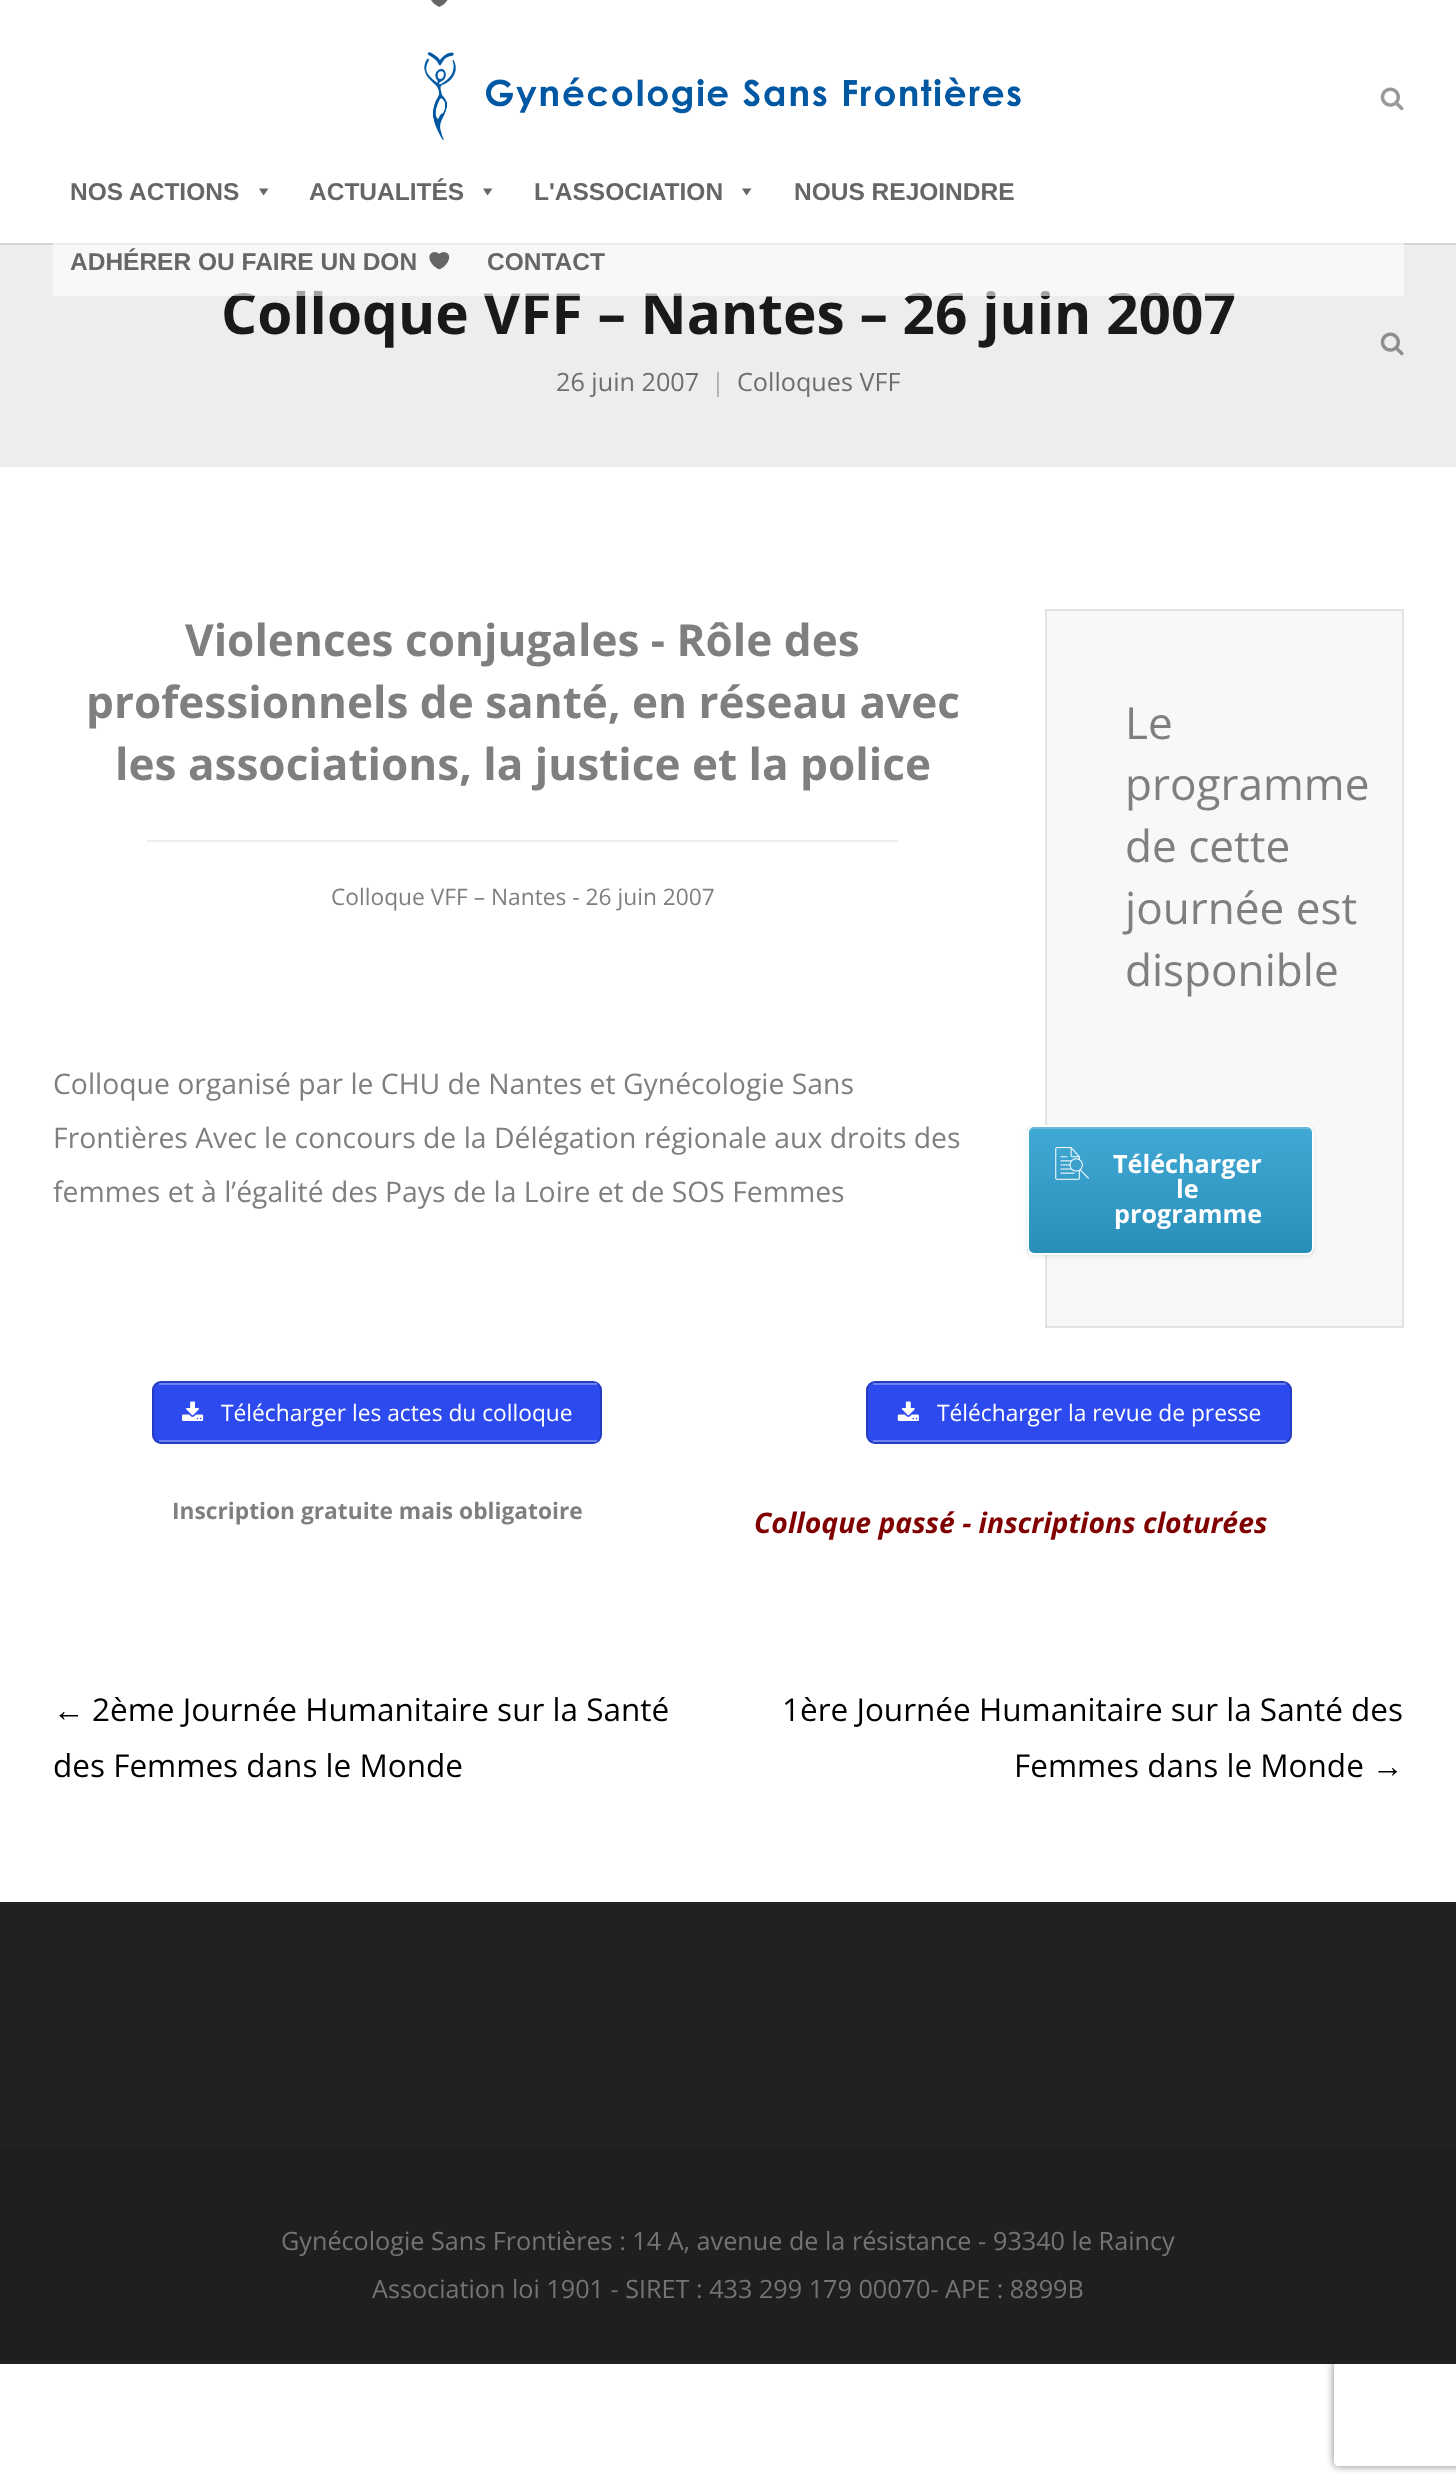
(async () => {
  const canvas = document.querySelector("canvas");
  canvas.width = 1456;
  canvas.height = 2490;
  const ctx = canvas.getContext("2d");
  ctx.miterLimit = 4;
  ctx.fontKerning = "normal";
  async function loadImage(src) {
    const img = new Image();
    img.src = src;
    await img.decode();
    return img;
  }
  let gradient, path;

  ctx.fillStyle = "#ffffff";
  ctx.fillRect(0, 0, 1456, 2490);
  ctx.drawImage(await loadImage("img/1.png"), 431, 0, 17, 7);
  ctx.drawImage(await loadImage("img/2.png"), 1380, 87, 24, 24);
  ctx.fillStyle = "#d5d5d5";
  ctx.fillRect(0, 243, 1456, 2);
  ctx.drawImage(await loadImage("img/3.png"), 424, 52, 597, 88);
  ctx.fillStyle = "#666666";
  path = new Path2D("M268.5 188.5L263.5 195.5L259 188.5Z");
  ctx.fill(path);
  path = new Path2D("M492.5 188.5L487.5 195.5L483 188.5Z");
  ctx.fill(path);
  path = new Path2D("M751.5 188.5L746.5 195.5L742 188.5Z");
  ctx.fill(path);
  ctx.fillStyle = "#ededed";
  ctx.fillRect(0, 245, 1456, 222);
  ctx.drawImage(await loadImage("img/5.png"), 1380, 332, 24, 24);
  ctx.fillStyle = "#eeeeee";
  ctx.fillRect(147, 840, 751, 2);
  ctx.fillStyle = "#f8f8f8";
  ctx.beginPath();
  ctx.rect(1046, 610, 357, 717);
  ctx.fill();
  ctx.strokeStyle = "#e3e3e3";
  ctx.lineWidth = 2;
  ctx.stroke();
  ctx.fillStyle = "rgba(0, 0, 0, 0.07)";
  ctx.filter = "blur(2px)";
  ctx.beginPath();
  ctx.roundRect(1027, 1127, 287, 130, 7);
  ctx.fill();
  ctx.filter = "none";
  ctx.save();
  ctx.beginPath();
  ctx.roundRect(1027, 1125, 287, 130, 7);
  ctx.clip();
  gradient = ctx.createLinearGradient(1029, 1253, 1029, 1127);
  gradient.addColorStop(0, "#298fba");
  gradient.addColorStop(1, "#41a9d5");
  ctx.fillStyle = gradient;
  ctx.fillRect(1027, 1127, 287, 126);
  ctx.restore();
  ctx.fillStyle = "rgba(255, 255, 255, 0.2)";
  path = new Path2D("M1034 1129H1308C1310 1129 1312 1131 1312 1133V1252C1312 1251 1313 1250 1313 1249V1131C1313 1129 1311 1127 1309 1127H1033C1031 1127 1029 1129 1029 1131V1133C1029 1131 1031 1129 1034 1129Z");
  ctx.fill(path);
  ctx.beginPath();
  ctx.roundRect(1028, 1126, 285, 128, 6);
  ctx.strokeStyle = "#ffffff";
  ctx.stroke();
  ctx.drawImage(await loadImage("img/6.png"), 1055, 1147, 34, 33);
  ctx.fillStyle = "#2d4aef";
  ctx.beginPath();
  ctx.roundRect(153, 1382, 448, 61, 8);
  ctx.fill();
  ctx.strokeStyle = "#243cc0";
  ctx.stroke();
  ctx.fillStyle = "#6c81f4";
  ctx.fillRect(159, 1383, 438, 2);
  ctx.fillRect(159, 1440, 438, 2);
  ctx.drawImage(await loadImage("img/7.png"), 182, 1401, 22, 20);
  ctx.fillStyle = "#2d4aef";
  ctx.beginPath();
  ctx.roundRect(867, 1382, 424, 61, 8);
  ctx.fill();
  ctx.stroke();
  ctx.fillStyle = "#6c81f4";
  ctx.fillRect(873, 1383, 413, 2);
  ctx.fillRect(873, 1440, 413, 2);
  ctx.drawImage(await loadImage("img/8.png"), 897, 1401, 22, 20);
  ctx.fillStyle = "#212121";
  ctx.fillRect(0, 1902, 1456, 245);
  ctx.save();
  path = new Path2D("M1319 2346H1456V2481H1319ZM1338 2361H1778C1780 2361 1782 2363 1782 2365V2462C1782 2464 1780 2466 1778 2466H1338C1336 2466 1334 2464 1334 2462V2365C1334 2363 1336 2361 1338 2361Z");
  ctx.clip(path, "evenodd");
  ctx.fillStyle = "#808080";
  ctx.filter = "blur(4.5px)";
  ctx.beginPath();
  ctx.roundRect(1334, 2361, 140, 105, 4);
  ctx.fill();
  ctx.filter = "none";
  ctx.restore();
  ctx.fillStyle = "#1f1f1f";
  ctx.fillRect(0, 2147, 1456, 217);
  ctx.font = "bold 24.5px Liberation Sans";
  ctx.fillStyle = "#666666";
  for (const [text, x, y] of [
    ["NOS ACTIONS", 70, 200],
    ["ACTUALITÉS", 309, 200],
    ["L'ASSOCIATION", 534, 200],
    ["NOUS REJOINDRE", 794, 200],
  ]) {
    ctx.fillText(text, x, y);
  }
  ctx.font = "bold 56.75px Open Sans";
  ctx.fillStyle = "#191919";
  ctx.fillText("Colloque VFF – Nantes – 26 juin 2007", 221, 334);
  ctx.fillStyle = "rgba(255, 255, 255, 0.6)";
  ctx.fillRect(53, 243, 1351, 53);
  ctx.font = "bold 24.5px Liberation Sans";
  ctx.fillStyle = "#666666";
  ctx.fillText("CONTACT", 487, 270);
  ctx.fillText("ADHÉRER OU FAIRE UN DON", 70, 270);
  ctx.drawImage(await loadImage("img/4.png"), 429, 252, 21, 18);
  ctx.font = "25.2px Open Sans";
  ctx.fillStyle = "#6e6e6e";
  ctx.fillText("26 juin 2007", 556, 391);
  ctx.fillStyle = "#adadad";
  ctx.fillText("|", 711, 391);
  ctx.fillStyle = "#6e6e6e";
  ctx.fillText("Colloques VFF", 737, 391);
  ctx.font = "bold 44.1px Open Sans";
  ctx.fillStyle = "#7f7f7f";
  for (const [text, x, y] of [
    ["Violences conjugales - Rôle des", 185, 656],
    ["professionnels de santé, en réseau avec", 86, 718],
    ["les associations, la justice et la police", 115, 780],
  ]) {
    ctx.fillText(text, x, y);
  }
  ctx.font = "22.75px Open Sans";
  ctx.fillText("Colloque VFF – Nantes - 26 juin 2007", 331, 905);
  ctx.font = "28.35px Open Sans";
  for (const [text, x, y] of [
    ["Colloque organisé par le CHU de Nantes et Gynécologie Sans", 53, 1094],
    ["Frontières Avec le concours de la Délégation régionale aux droits des", 53, 1148],
    ["femmes et à l’égalité des Pays de la Loire et de SOS Femmes", 53, 1202],
  ]) {
    ctx.fillText(text, x, y);
  }
  ctx.font = "44.1px Open Sans";
  for (const [text, x, y] of [
    ["Le", 1125, 739],
    ["programme", 1125, 800],
    ["de cette", 1125, 862],
    ["journée est", 1125, 924],
    ["disponible", 1125, 986],
  ]) {
    ctx.fillText(text, x, y);
  }
  ctx.font = "bold 25.2px Open Sans";
  ctx.fillStyle = "#ffffff";
  for (const [text, x, y] of [
    ["Télécharger", 1113, 1173],
    ["le", 1176, 1198],
    ["programme", 1114, 1223],
  ]) {
    ctx.fillText(text, x, y);
  }
  ctx.font = "22.75px Open Sans";
  ctx.fillText("Télécharger les actes du colloque", 221, 1421);
  ctx.fillText("Télécharger la revue de presse", 937, 1421);
  ctx.font = "bold 22.75px Open Sans";
  ctx.fillStyle = "#7f7f7f";
  ctx.fillText("Inscription gratuite mais obligatoire", 172, 1519);
  ctx.font = "italic bold 28.35px Open Sans";
  ctx.fillStyle = "#800000";
  ctx.fillText("Colloque passé - inscriptions cloturées", 754, 1533);
  ctx.font = "31.5px Liberation Sans";
  ctx.fillStyle = "#000000";
  ctx.fillText("←", 53, 1721);
  ctx.font = "31.5px Open Sans";
  for (const [text, x, y] of [
    ["2ème Journée Humanitaire sur la Santé", 92, 1721],
    ["des Femmes dans le Monde", 53, 1777],
    ["1ère Journée Humanitaire sur la Santé des", 782, 1721],
    ["Femmes dans le Monde", 1014, 1777],
  ]) {
    ctx.fillText(text, x, y);
  }
  ctx.font = "31.5px Liberation Sans";
  ctx.fillText("→", 1372, 1777);
  ctx.font = "25.2px Open Sans";
  ctx.fillStyle = "#747475";
  for (const [text, x, y] of [
    ["Gynécologie Sans Frontières : 14 A, avenue de la résistance -", 281, 2250],
    ["93340 le Raincy", 993, 2250],
    ["Association loi 1901 - SIRET : 433 299 179 00070- APE : 8899B", 372, 2298],
  ]) {
    ctx.fillText(text, x, y);
  }
})();
